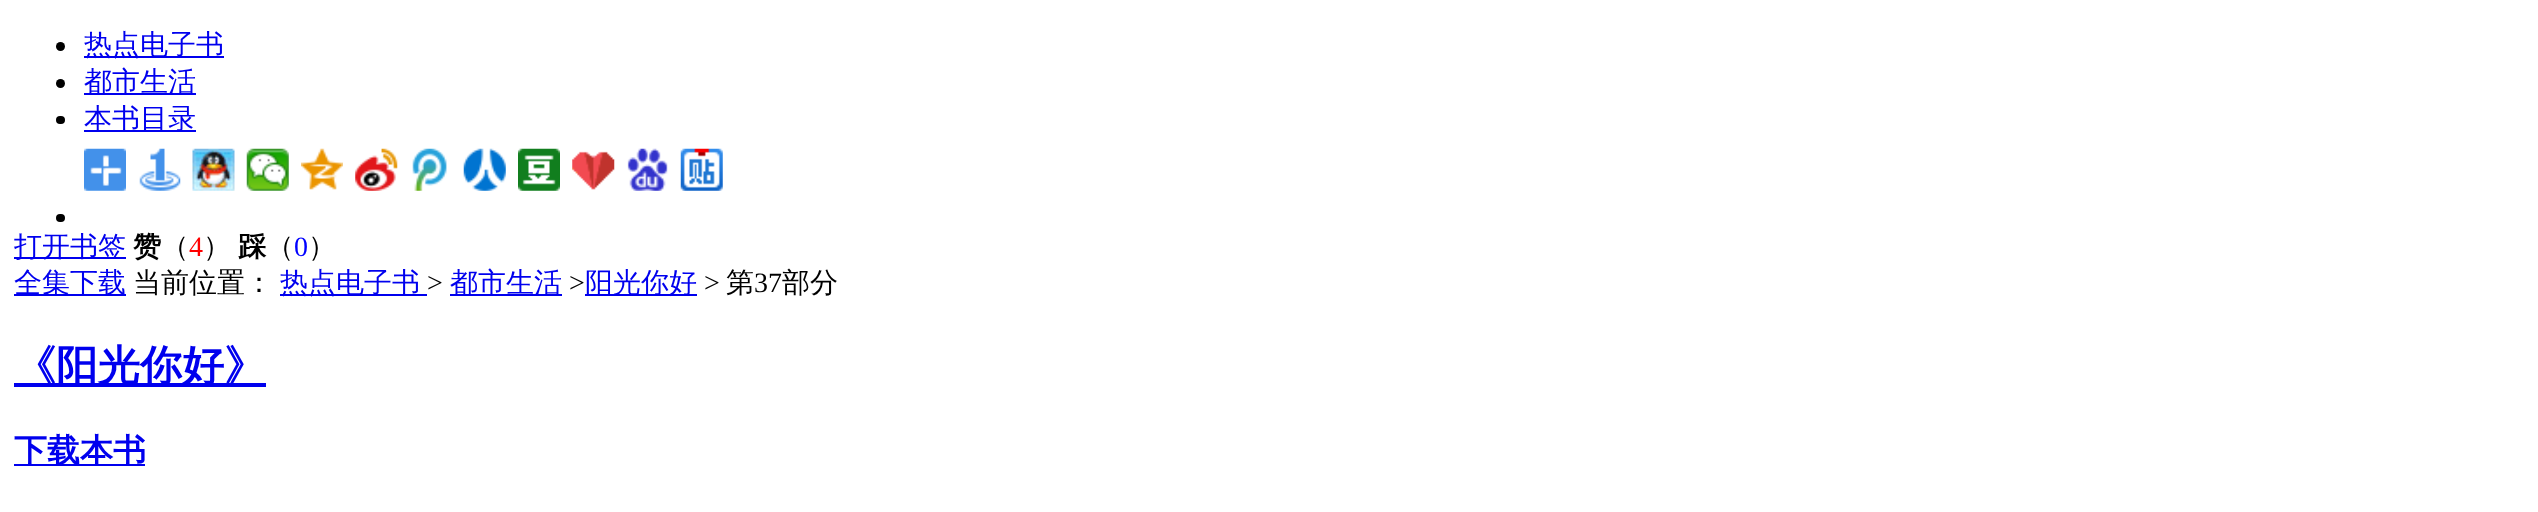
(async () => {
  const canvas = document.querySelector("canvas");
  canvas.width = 2538;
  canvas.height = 512;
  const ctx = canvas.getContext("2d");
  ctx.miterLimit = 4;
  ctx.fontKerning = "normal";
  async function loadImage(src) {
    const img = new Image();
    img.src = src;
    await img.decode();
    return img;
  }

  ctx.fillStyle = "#ffffff";
  ctx.fillRect(0, 0, 2538, 512);
  ctx.fillStyle = "#000000";
  ctx.beginPath();
  ctx.arc(60.5, 46.5, 4.5, 0, Math.PI * 2);
  ctx.fill();
  ctx.fillStyle = "#0000ee";
  ctx.fillRect(84, 56, 140, 2);
  ctx.fillStyle = "#000000";
  ctx.beginPath();
  ctx.arc(60.5, 83.5, 4.5, 0, Math.PI * 2);
  ctx.fill();
  ctx.fillStyle = "#0000ee";
  ctx.fillRect(84, 93, 112, 2);
  ctx.fillStyle = "#000000";
  ctx.beginPath();
  ctx.roundRect(56, 116, 9, 8, 4);
  ctx.fill();
  ctx.fillStyle = "#0000ee";
  ctx.fillRect(84, 130, 112, 2);
  ctx.drawImage(await loadImage("img/1.png"), 84, 148, 42, 43);
  ctx.drawImage(await loadImage("img/2.png"), 139, 148, 42, 43);
  ctx.drawImage(await loadImage("img/3.png"), 192, 148, 43, 43);
  ctx.drawImage(await loadImage("img/4.png"), 246, 148, 43, 43);
  ctx.drawImage(await loadImage("img/5.png"), 301, 148, 42, 42);
  ctx.drawImage(await loadImage("img/6.png"), 355, 148, 43, 43);
  ctx.drawImage(await loadImage("img/7.png"), 412, 148, 35, 43);
  ctx.drawImage(await loadImage("img/8.png"), 463, 148, 43, 43);
  ctx.drawImage(await loadImage("img/9.png"), 518, 148, 42, 43);
  ctx.drawImage(await loadImage("img/10.png"), 572, 151, 43, 39);
  ctx.drawImage(await loadImage("img/11.png"), 627, 148, 41, 43);
  ctx.drawImage(await loadImage("img/12.png"), 680, 148, 43, 43);
  ctx.fillStyle = "#000000";
  ctx.beginPath();
  ctx.roundRect(56, 214, 9, 8, 4);
  ctx.fill();
  for (const [x, y, w, h, color] of [
    [14, 257, 112, 2, "#0000ee"],
    [14, 294, 112, 2, "#0000ee"],
    [280, 294, 147, 2, "#0000ee"],
    [450, 294, 112, 2, "#0000ee"],
    [585, 294, 112, 2, "#0000ee"],
    [14, 383, 252, 4, "#0000ee"],
    [14, 464, 131, 2, "#0000ee"],
  ]) {
    ctx.fillStyle = color;
    ctx.fillRect(x, y, w, h);
  }
  ctx.font = "500 28px WenQuanYi Zen Hei";
  for (const [text, x, y] of [
    ["热点电子书", 84, 54],
    ["都市生活", 84, 91],
    ["本书目录", 84, 128],
    ["打开书签", 14, 256],
  ]) {
    ctx.fillText(text, x, y);
  }
  ctx.font = "bold 28px WenQuanYi Zen Hei";
  ctx.fillStyle = "#000000";
  ctx.fillText("赞", 133, 256);
  ctx.font = "500 28px WenQuanYi Zen Hei";
  ctx.fillText("（", 161, 256);
  ctx.font = "28px Liberation Serif";
  ctx.fillStyle = "#ff0000";
  ctx.fillText("4", 189, 256);
  ctx.font = "500 28px WenQuanYi Zen Hei";
  ctx.fillStyle = "#000000";
  ctx.fillText("）", 203, 256);
  ctx.font = "bold 28px WenQuanYi Zen Hei";
  ctx.fillText("踩", 238, 256);
  ctx.font = "500 28px WenQuanYi Zen Hei";
  ctx.fillText("（", 266, 256);
  ctx.font = "28px Liberation Serif";
  ctx.fillStyle = "#0000ff";
  ctx.fillText("0", 294, 256);
  ctx.font = "500 28px WenQuanYi Zen Hei";
  ctx.fillStyle = "#000000";
  ctx.fillText("）", 308, 256);
  ctx.fillStyle = "#0000ee";
  ctx.fillText("全集下载", 14, 292);
  ctx.fillStyle = "#000000";
  ctx.fillText("当前位置：", 133, 292);
  ctx.fillStyle = "#0000ee";
  ctx.fillText("热点电子书", 280, 292);
  ctx.font = "28px Liberation Serif";
  ctx.fillStyle = "#000000";
  ctx.fillText(">", 427, 292);
  ctx.font = "500 28px WenQuanYi Zen Hei";
  ctx.fillStyle = "#0000ee";
  ctx.fillText("都市生活", 450, 292);
  ctx.font = "28px Liberation Serif";
  ctx.fillStyle = "#000000";
  ctx.fillText(">", 569, 292);
  ctx.font = "500 28px WenQuanYi Zen Hei";
  ctx.fillStyle = "#0000ee";
  ctx.fillText("阳光你好", 585, 292);
  ctx.font = "28px Liberation Serif";
  ctx.fillStyle = "#000000";
  ctx.fillText(">", 704, 292);
  ctx.font = "500 28px WenQuanYi Zen Hei";
  ctx.fillText("第", 726, 292);
  ctx.font = "28px Liberation Serif";
  ctx.fillText("37", 754, 292);
  ctx.font = "500 28px WenQuanYi Zen Hei";
  ctx.fillText("部分", 782, 292);
  ctx.font = "bold 42px WenQuanYi Zen Hei";
  ctx.fillStyle = "#0000ee";
  ctx.fillText("《阳光你好》", 14, 380);
  ctx.font = "bold 33px WenQuanYi Zen Hei";
  ctx.fillText("下载本书", 14, 462);
})();
